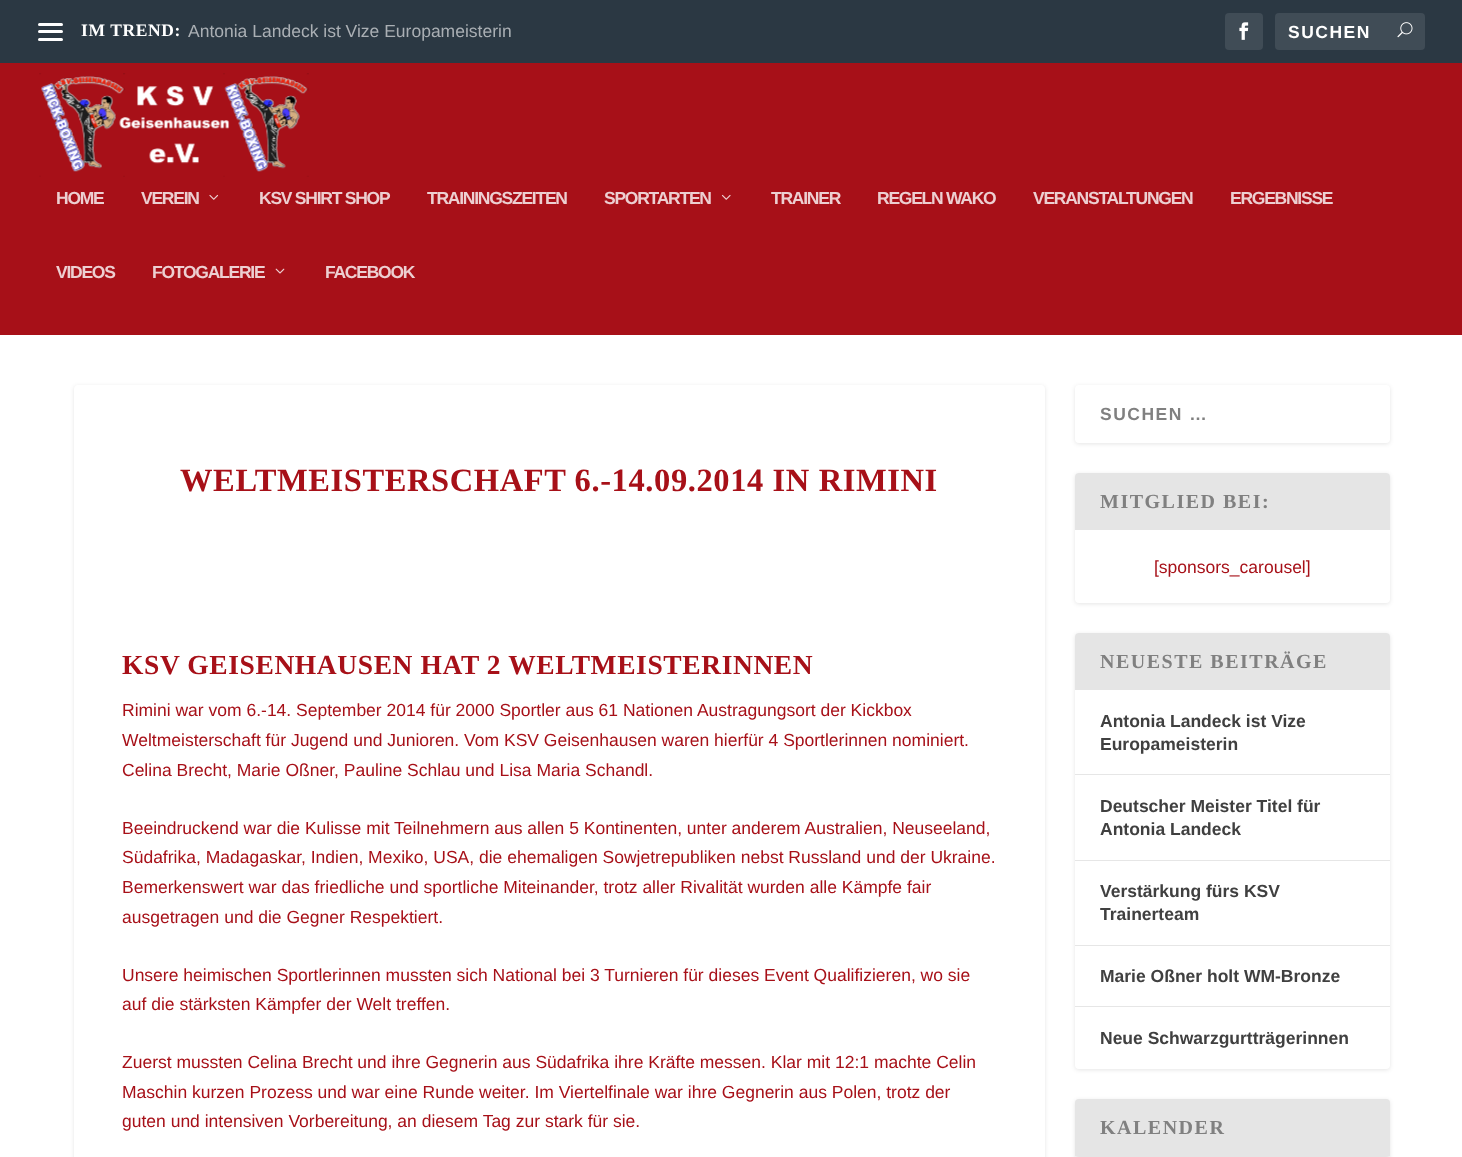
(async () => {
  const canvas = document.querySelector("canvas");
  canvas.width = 1462;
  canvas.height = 1157;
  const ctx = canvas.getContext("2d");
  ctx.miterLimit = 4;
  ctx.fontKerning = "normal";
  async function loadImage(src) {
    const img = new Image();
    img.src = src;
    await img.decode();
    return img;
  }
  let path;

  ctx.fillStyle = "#ffffff";
  ctx.fillRect(0, 0, 1462, 1157);
  ctx.fillStyle = "#2b3843";
  ctx.fillRect(0, 0, 1462, 63);
  ctx.fillStyle = "#ffffff";
  ctx.beginPath();
  ctx.roundRect(38, 23, 25, 3, 1.5);
  ctx.fill();
  ctx.beginPath();
  ctx.roundRect(38, 30, 25, 3, 1.5);
  ctx.fill();
  ctx.beginPath();
  ctx.roundRect(38, 38, 25, 3, 1.5);
  ctx.fill();
  ctx.fillStyle = "#404c56";
  ctx.beginPath();
  ctx.roundRect(1225, 13, 38, 37, 4);
  ctx.fill();
  ctx.drawImage(await loadImage("img/1.png"), 1239, 22, 10, 18);
  ctx.beginPath();
  ctx.roundRect(1275, 13, 150, 37, 4);
  ctx.fill();
  ctx.drawImage(await loadImage("img/2.png"), 1397, 22, 16, 16);
  ctx.fillStyle = "#a71018";
  ctx.fillRect(0, 63, 1462, 272);
  ctx.drawImage(await loadImage("img/3.png"), 39, 73, 270, 104);
  ctx.drawImage(await loadImage("img/4.png"), 209, 194, 10, 6);
  ctx.drawImage(await loadImage("img/5.png"), 721, 194, 10, 6);
  ctx.drawImage(await loadImage("img/6.png"), 275, 268, 10, 6);
  ctx.save();
  path = new Path2D("M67 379H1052V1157H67ZM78 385H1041C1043 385 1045 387 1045 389V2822C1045 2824 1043 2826 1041 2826H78C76 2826 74 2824 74 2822V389C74 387 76 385 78 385Z");
  ctx.clip(path, "evenodd");
  ctx.fillStyle = "rgba(0, 0, 0, 0.1)";
  ctx.filter = "blur(2px)";
  ctx.beginPath();
  ctx.roundRect(74, 386, 971, 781, 4);
  ctx.fill();
  ctx.filter = "none";
  ctx.restore();
  ctx.fillStyle = "rgba(0, 0, 0, 0.1)";
  ctx.filter = "blur(2px)";
  ctx.beginPath();
  ctx.roundRect(1075, 386, 315, 58, 4);
  ctx.fill();
  ctx.filter = "none";
  ctx.fillStyle = "#ffffff";
  ctx.beginPath();
  ctx.roundRect(1075, 385, 315, 58, 4);
  ctx.fill();
  ctx.fillStyle = "rgba(0, 0, 0, 0.1)";
  ctx.filter = "blur(2px)";
  ctx.beginPath();
  ctx.roundRect(1075, 474, 315, 130, 4);
  ctx.fill();
  ctx.filter = "none";
  ctx.fillStyle = "#ffffff";
  ctx.beginPath();
  ctx.roundRect(1075, 473, 315, 130, 4);
  ctx.fill();
  ctx.fillStyle = "#e5e5e5";
  ctx.beginPath();
  ctx.roundRect(1075, 473, 315, 57, [4, 4, 0, 0]);
  ctx.fill();
  ctx.fillStyle = "rgba(0, 0, 0, 0.1)";
  ctx.filter = "blur(2px)";
  ctx.beginPath();
  ctx.roundRect(1075, 634, 315, 436, 4);
  ctx.fill();
  ctx.filter = "none";
  ctx.fillStyle = "#ffffff";
  ctx.beginPath();
  ctx.roundRect(1075, 633, 315, 436, 4);
  ctx.fill();
  ctx.fillStyle = "#e5e5e5";
  ctx.beginPath();
  ctx.roundRect(1075, 633, 315, 57, [4, 4, 0, 0]);
  ctx.fill();
  for (const [x, y, w, h, color] of [
    [1075, 774, 315, 1, "#e6e6e6"],
    [1075, 860, 315, 1, "#e6e6e6"],
    [1075, 945, 315, 1, "#e6e6e6"],
    [1075, 1006, 315, 1, "#e6e6e6"],
  ]) {
    ctx.fillStyle = color;
    ctx.fillRect(x, y, w, h);
  }
  ctx.fillStyle = "rgba(0, 0, 0, 0.1)";
  ctx.filter = "blur(2px)";
  ctx.beginPath();
  ctx.roundRect(1075, 1100, 315, 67, 4);
  ctx.fill();
  ctx.filter = "none";
  ctx.fillStyle = "#e5e5e5";
  ctx.beginPath();
  ctx.roundRect(1075, 1099, 315, 57, [4, 4, 0, 0]);
  ctx.fill();
  ctx.letterSpacing = "0.6px";
  ctx.font = "bold 17.5px Liberation Serif";
  ctx.fillStyle = "#ffffff";
  ctx.fillText("IM TREND:", 81, 36);
  ctx.letterSpacing = "0px";
  ctx.font = "17.5px Liberation Sans";
  ctx.fillStyle = "#aaafb4";
  ctx.fillText("Antonia Landeck ist Vize Europameisterin", 188, 37);
  ctx.letterSpacing = "1.5px";
  ctx.font = "bold 17.5px Liberation Sans";
  ctx.fillStyle = "#ffffff";
  ctx.fillText("SUCHEN", 1288, 38);
  ctx.letterSpacing = "-1.25px";
  ctx.fillStyle = "#edcfd1";
  for (const [text, x, y] of [
    ["HOME", 56, 204],
    ["VEREIN", 141, 204],
    ["KSV SHIRT SHOP", 259, 204],
    ["TRAININGSZEITEN", 427, 204],
    ["SPORTARTEN", 604, 204],
    ["TRAINER", 771, 204],
    ["REGELN WAKO", 877, 204],
    ["VERANSTALTUNGEN", 1033, 204],
    ["ERGEBNISSE", 1230, 204],
    ["VIDEOS", 56, 278],
    ["FOTOGALERIE", 152, 278],
    ["FACEBOOK", 325, 278],
  ]) {
    ctx.fillText(text, x, y);
  }
  ctx.letterSpacing = "0.6px";
  ctx.font = "bold 32.5px Liberation Serif";
  ctx.fillStyle = "#a71018";
  ctx.fillText("WELTMEISTERSCHAFT 6.-14.09.2014 IN RIMINI", 180, 491);
  ctx.font = "bold 27.5px Liberation Serif";
  ctx.fillText("KSV GEISENHAUSEN HAT 2 WELTMEISTERINNEN", 122, 674);
  ctx.letterSpacing = "0px";
  ctx.font = "17.5px Liberation Sans";
  for (const [text, x, y] of [
    ["Rimini war vom 6.-14. September 2014 für 2000 Sportler aus 61 Nationen Austragungsort der Kickbox", 122, 716],
    ["Weltmeisterschaft für Jugend und Junioren. Vom KSV Geisenhausen waren hierfür 4 Sportlerinnen nominiert.", 122, 746],
    ["Celina Brecht, Marie Oßner, Pauline Schlau und Lisa Maria Schandl.", 122, 776],
    ["Beeindruckend war die Kulisse mit Teilnehmern aus allen 5 Kontinenten, unter anderem Australien, Neuseeland,", 122, 834],
    ["Südafrika, Madagaskar, Indien, Mexiko, USA, die ehemaligen Sowjetrepubliken nebst Russland und der Ukraine.", 122, 863],
    ["Bemerkenswert war das friedliche und sportliche Miteinander, trotz aller Rivalität wurden alle Kämpfe fair", 122, 893],
    ["ausgetragen und die Gegner Respektiert.", 122, 923],
    ["Unsere heimischen Sportlerinnen mussten sich National bei 3 Turnieren für dieses Event Qualifizieren, wo sie", 122, 981],
    ["auf die stärksten Kämpfer der Welt treffen.", 122, 1010],
    ["Zuerst mussten Celina Brecht und ihre Gegnerin aus Südafrika ihre Kräfte messen. Klar mit 12:1 machte Celin", 122, 1068],
    ["Maschin kurzen Prozess und war eine Runde weiter. Im Viertelfinale war ihre Gegnerin aus Polen, trotz der", 122, 1098],
    ["guten und intensiven Vorbereitung, an diesem Tag zur stark für sie.", 122, 1127],
  ]) {
    ctx.fillText(text, x, y);
  }
  ctx.letterSpacing = "1.5px";
  ctx.font = "bold 17.5px Liberation Sans";
  ctx.fillStyle = "#808080";
  ctx.fillText("SUCHEN …", 1100, 420);
  ctx.font = "bold 20px Liberation Serif";
  ctx.fillText("MITGLIED BEI:", 1100, 508);
  ctx.letterSpacing = "0px";
  ctx.font = "17.5px Liberation Sans";
  ctx.fillStyle = "#a71018";
  ctx.fillText("[sponsors_carousel]", 1154, 573);
  ctx.letterSpacing = "1.5px";
  ctx.font = "bold 20px Liberation Serif";
  ctx.fillStyle = "#808080";
  ctx.fillText("NEUESTE BEITRÄGE", 1100, 668);
  ctx.letterSpacing = "0px";
  ctx.font = "bold 17.5px Liberation Sans";
  ctx.fillStyle = "#404040";
  for (const [text, x, y] of [
    ["Antonia Landeck ist Vize", 1100, 727],
    ["Europameisterin", 1100, 750],
    ["Deutscher Meister Titel für", 1100, 812],
    ["Antonia Landeck", 1100, 835],
    ["Verstärkung fürs KSV", 1100, 897],
    ["Trainerteam", 1100, 920],
    ["Marie Oßner holt WM-Bronze", 1100, 982],
    ["Neue Schwarzgurtträgerinnen", 1100, 1044],
  ]) {
    ctx.fillText(text, x, y);
  }
  ctx.letterSpacing = "1.5px";
  ctx.font = "bold 20px Liberation Serif";
  ctx.fillStyle = "#808080";
  ctx.fillText("KALENDER", 1100, 1134);
})();
